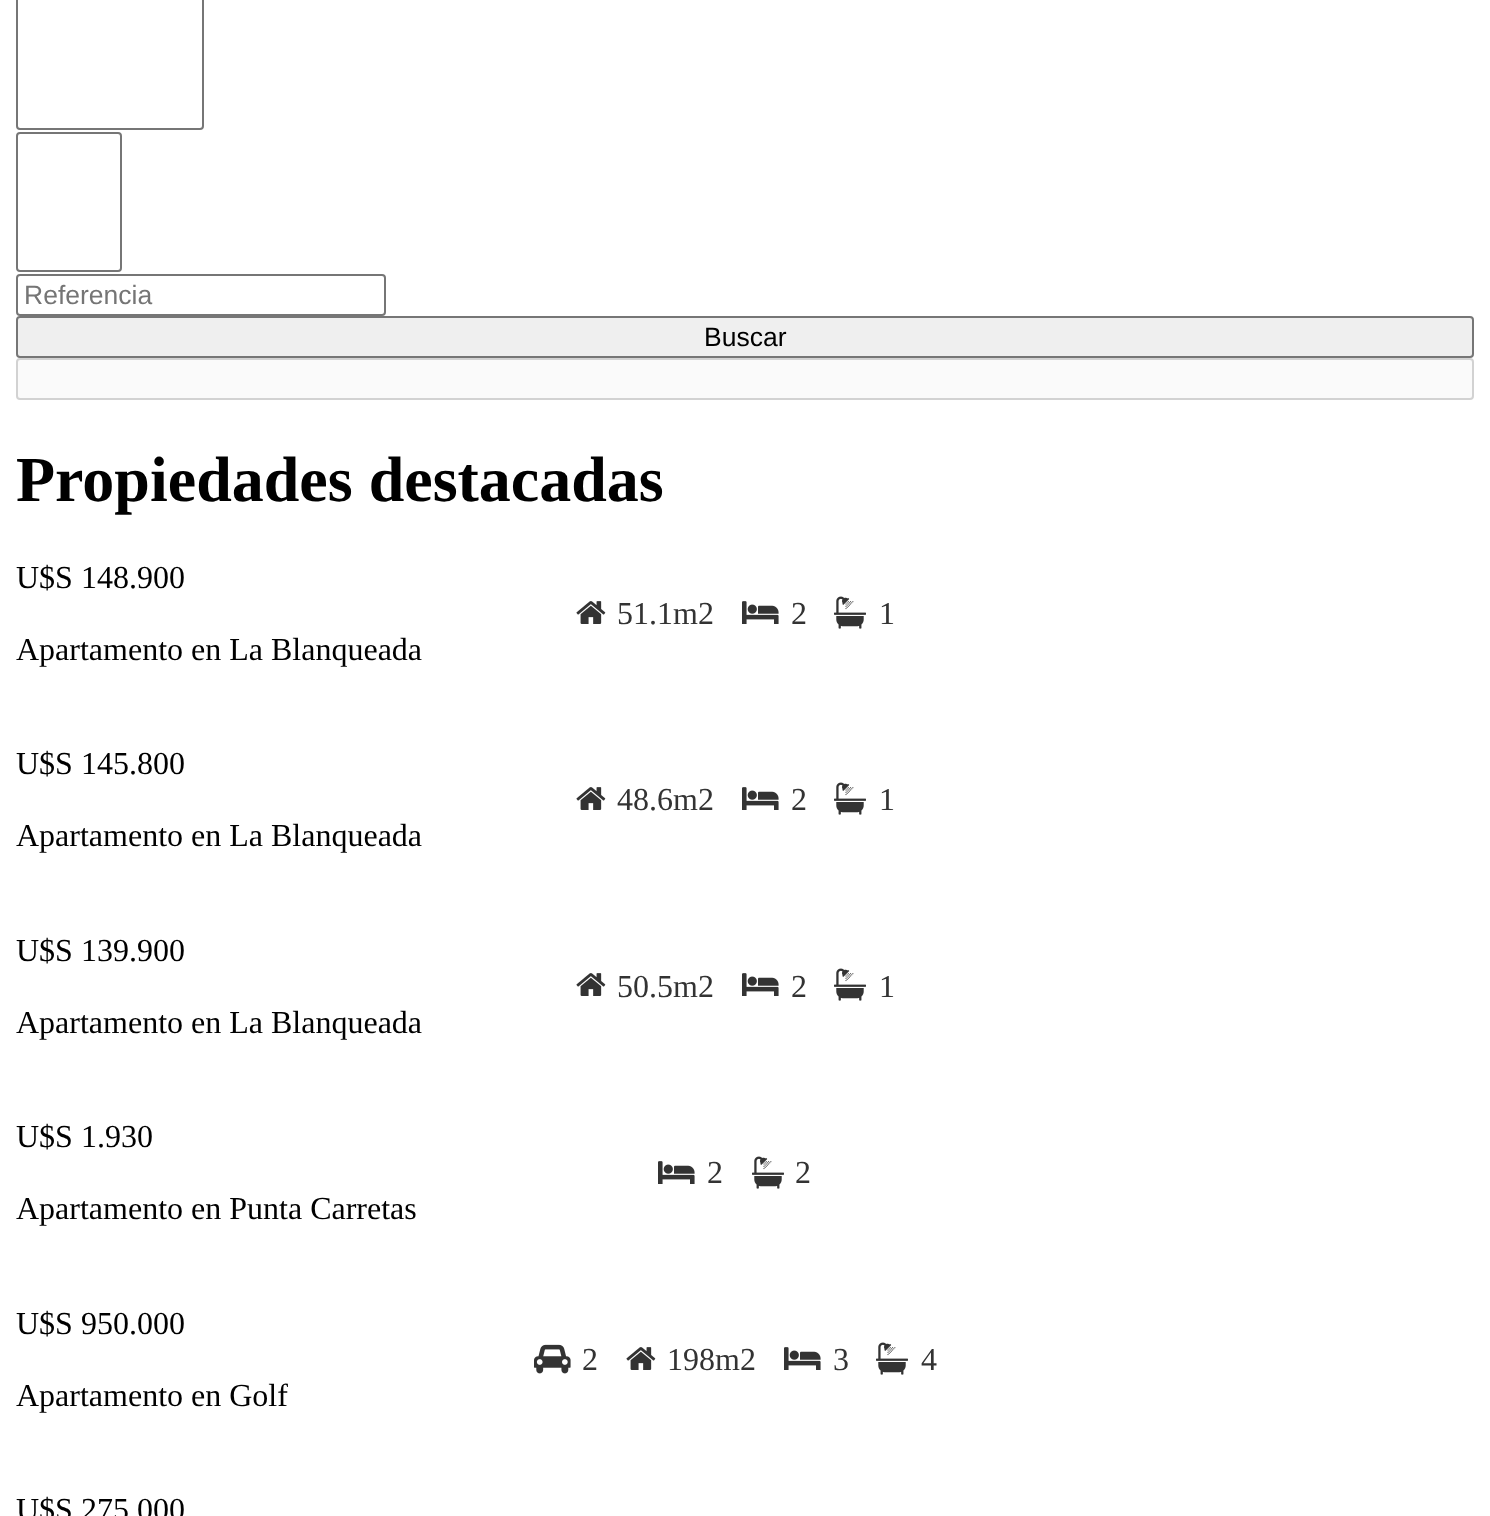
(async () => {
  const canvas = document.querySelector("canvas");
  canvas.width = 1490;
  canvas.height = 1516;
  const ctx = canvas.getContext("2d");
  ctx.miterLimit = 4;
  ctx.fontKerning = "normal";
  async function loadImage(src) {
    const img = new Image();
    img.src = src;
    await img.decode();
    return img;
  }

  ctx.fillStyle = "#ffffff";
  ctx.fillRect(0, 0, 1490, 1516);
  ctx.beginPath();
  ctx.roundRect(17, -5, 186, 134, 3);
  ctx.strokeStyle = "#767676";
  ctx.lineWidth = 2;
  ctx.stroke();
  ctx.beginPath();
  ctx.roundRect(17, 133, 104, 138, 3);
  ctx.stroke();
  ctx.beginPath();
  ctx.roundRect(17, 275, 368, 40, 3);
  ctx.stroke();
  ctx.fillStyle = "#efefef";
  ctx.beginPath();
  ctx.roundRect(17, 317, 1456, 40, 3);
  ctx.fill();
  ctx.stroke();
  ctx.fillStyle = "#fafafa";
  ctx.beginPath();
  ctx.roundRect(17, 359, 1456, 40, 3);
  ctx.fill();
  ctx.strokeStyle = "#d2d2d2";
  ctx.stroke();
  ctx.drawImage(await loadImage("img/1.png"), 576, 601, 30, 23);
  ctx.drawImage(await loadImage("img/2.png"), 742, 601, 37, 23);
  ctx.drawImage(await loadImage("img/3.png"), 834, 596, 32, 33);
  ctx.drawImage(await loadImage("img/1.png"), 576, 787, 30, 23);
  ctx.drawImage(await loadImage("img/2.png"), 742, 787, 37, 23);
  ctx.drawImage(await loadImage("img/3.png"), 834, 782, 32, 33);
  ctx.drawImage(await loadImage("img/1.png"), 576, 973, 30, 23);
  ctx.drawImage(await loadImage("img/2.png"), 742, 973, 37, 23);
  ctx.drawImage(await loadImage("img/3.png"), 834, 968, 32, 33);
  ctx.drawImage(await loadImage("img/2.png"), 658, 1161, 37, 23);
  ctx.drawImage(await loadImage("img/3.png"), 752, 1156, 32, 33);
  ctx.drawImage(await loadImage("img/4.png"), 534, 1344, 37, 30);
  ctx.drawImage(await loadImage("img/1.png"), 626, 1347, 30, 23);
  ctx.drawImage(await loadImage("img/2.png"), 784, 1347, 37, 23);
  ctx.drawImage(await loadImage("img/3.png"), 876, 1342, 32, 33);
  ctx.font = "26.5px Liberation Sans";
  ctx.fillStyle = "#757575";
  ctx.fillText("Referencia", 24, 304);
  ctx.fillStyle = "#000000";
  ctx.fillText("Buscar", 704, 346);
  ctx.font = "bold 64px Liberation Serif";
  ctx.fillText("Propiedades destacadas", 16, 501);
  ctx.font = "32px Liberation Serif";
  ctx.fillText("U$S 148.900", 16, 588);
  ctx.fillStyle = "#333333";
  for (const [text, x, y] of [
    ["51.1m2", 617, 624],
    ["2", 791, 624],
    ["1", 879, 624],
  ]) {
    ctx.fillText(text, x, y);
  }
  ctx.fillStyle = "#000000";
  ctx.fillText("Apartamento en La Blanqueada", 16, 660);
  ctx.fillText("U$S 145.800", 16, 774);
  ctx.fillStyle = "#333333";
  for (const [text, x, y] of [
    ["48.6m2", 617, 810],
    ["2", 791, 810],
    ["1", 879, 810],
  ]) {
    ctx.fillText(text, x, y);
  }
  ctx.fillStyle = "#000000";
  ctx.fillText("Apartamento en La Blanqueada", 16, 846);
  ctx.fillText("U$S 139.900", 16, 961);
  ctx.fillStyle = "#333333";
  for (const [text, x, y] of [
    ["50.5m2", 617, 997],
    ["2", 791, 997],
    ["1", 879, 997],
  ]) {
    ctx.fillText(text, x, y);
  }
  ctx.fillStyle = "#000000";
  ctx.fillText("Apartamento en La Blanqueada", 16, 1033);
  ctx.fillText("U$S 1.930", 16, 1147);
  ctx.fillStyle = "#333333";
  ctx.fillText("2", 707, 1183);
  ctx.fillText("2", 795, 1183);
  ctx.fillStyle = "#000000";
  ctx.fillText("Apartamento en Punta Carretas", 16, 1219);
  ctx.fillText("U$S 950.000", 16, 1334);
  ctx.fillStyle = "#333333";
  for (const [text, x, y] of [
    ["2", 582, 1370],
    ["198m2", 667, 1370],
    ["3", 833, 1370],
    ["4", 921, 1370],
  ]) {
    ctx.fillText(text, x, y);
  }
  ctx.fillStyle = "#000000";
  ctx.fillText("Apartamento en Golf", 16, 1406);
  ctx.fillText("U$S 275.000", 16, 1520);
})();
